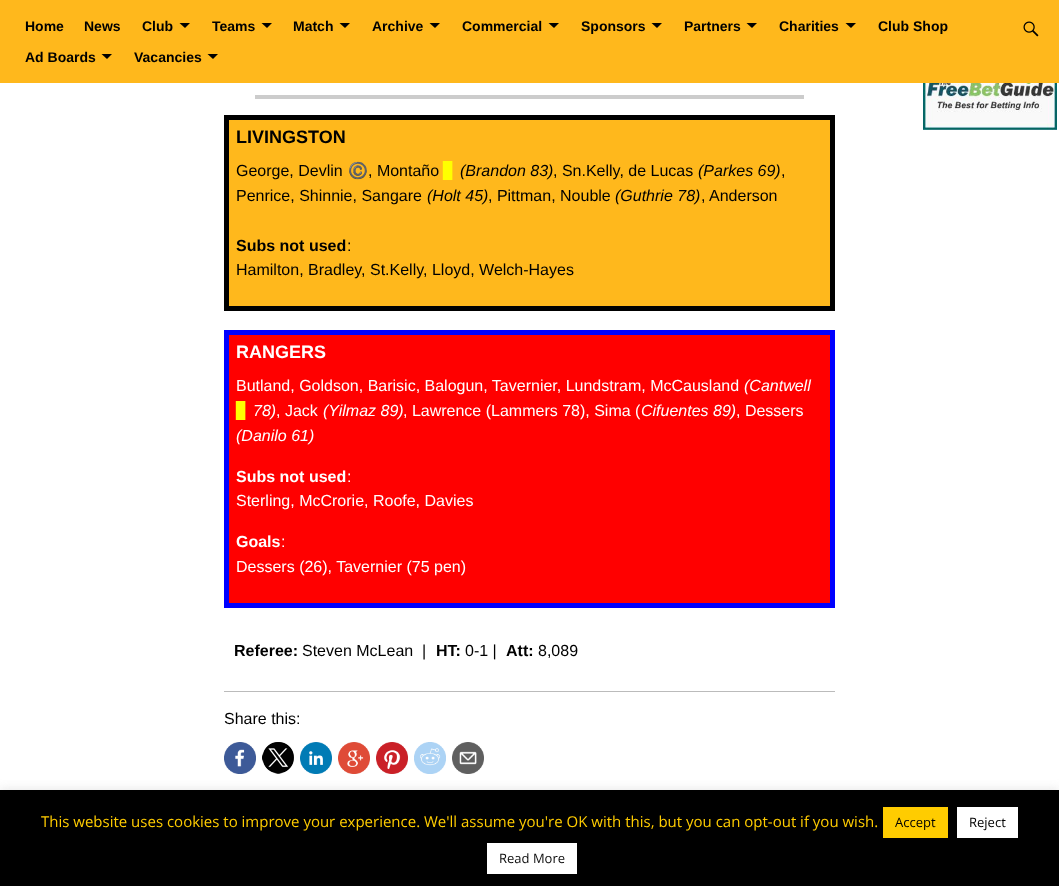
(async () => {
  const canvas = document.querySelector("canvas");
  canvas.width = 1059;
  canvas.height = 886;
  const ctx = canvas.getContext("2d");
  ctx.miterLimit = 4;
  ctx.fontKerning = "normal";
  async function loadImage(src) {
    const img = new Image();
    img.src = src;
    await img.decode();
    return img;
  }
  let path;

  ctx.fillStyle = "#ffffff";
  ctx.fillRect(0, 0, 1059, 886);
  ctx.fillStyle = "#ffb81c";
  ctx.fillRect(0, 0, 1059, 83);
  ctx.fillStyle = "#000000";
  path = new Path2D("M179.5 23H190L185 28Z");
  ctx.fill(path);
  path = new Path2D("M261.5 23H272L267 28Z");
  ctx.fill(path);
  path = new Path2D("M339.5 23H350L345 28Z");
  ctx.fill(path);
  path = new Path2D("M429.5 23H440L435 28Z");
  ctx.fill(path);
  path = new Path2D("M548.5 23H559L554 28Z");
  ctx.fill(path);
  path = new Path2D("M651.5 23H662L657 28Z");
  ctx.fill(path);
  path = new Path2D("M746.5 23H757L752 28Z");
  ctx.fill(path);
  path = new Path2D("M845.5 23H856L851 28Z");
  ctx.fill(path);
  path = new Path2D("M101.5 54H112L107 59Z");
  ctx.fill(path);
  path = new Path2D("M207.5 54H218L213 59Z");
  ctx.fill(path);
  ctx.drawImage(await loadImage("img/1.png"), 1023, 21, 16, 16);
  ctx.drawImage(await loadImage("img/2.png"), 923, 83, 134, 47);
  for (const [x, y, w, h, color] of [
    [255, 95, 549, 4, "#cccccc"],
    [229, 120, 601, 186, "#ffb81c"],
    [224, 115, 611, 5, "#000000"],
    [830, 115, 5, 196, "#000000"],
    [224, 306, 611, 5, "#000000"],
    [224, 115, 5, 196, "#000000"],
    [229, 335, 601, 268, "#ff0000"],
    [224, 330, 611, 5, "#0000ff"],
    [830, 330, 5, 278, "#0000ff"],
    [224, 603, 611, 5, "#0000ff"],
    [224, 330, 5, 278, "#0000ff"],
    [224, 691, 611, 1, "#bbbbbb"],
  ]) {
    ctx.fillStyle = color;
    ctx.fillRect(x, y, w, h);
  }
  ctx.drawImage(await loadImage("img/3.png"), 224, 742, 32, 32);
  ctx.drawImage(await loadImage("img/4.png"), 262, 742, 32, 32);
  ctx.drawImage(await loadImage("img/5.png"), 300, 742, 32, 32);
  ctx.drawImage(await loadImage("img/6.png"), 338, 742, 32, 32);
  ctx.drawImage(await loadImage("img/7.png"), 376, 742, 32, 32);
  ctx.drawImage(await loadImage("img/8.png"), 414, 742, 32, 32);
  ctx.drawImage(await loadImage("img/9.png"), 452, 742, 32, 32);
  ctx.fillStyle = "rgba(172, 171, 171, 0.3)";
  ctx.filter = "blur(5px)";
  ctx.beginPath();
  ctx.rect(0, 789, 1059, 96);
  ctx.fill();
  ctx.filter = "none";
  for (const [x, y, w, h, color] of [
    [0, 790, 1059, 96, "#000000"],
    [883, 807, 65, 31, "#ffcc00"],
    [957, 807, 61, 31, "#ffffff"],
    [487, 843, 90, 31, "#ffffff"],
  ]) {
    ctx.fillStyle = color;
    ctx.fillRect(x, y, w, h);
  }
  ctx.font = "bold 14px Liberation Sans";
  ctx.fillStyle = "#000000";
  for (const [text, x, y] of [
    ["Home", 25, 31],
    ["News", 84, 31],
    ["Club", 142, 31],
    ["Teams", 212, 31],
    ["Match", 293, 31],
    ["Archive", 372, 31],
    ["Commercial", 462, 31],
    ["Sponsors", 581, 31],
    ["Partners", 684, 31],
    ["Charities", 779, 31],
    ["Club Shop", 878, 31],
    ["Ad Boards", 25, 62],
    ["Vacancies", 134, 62],
  ]) {
    ctx.fillText(text, x, y);
  }
  ctx.font = "bold 18px Liberation Sans";
  ctx.fillText("LIVINGSTON", 236, 143);
  ctx.font = "16px Liberation Sans";
  ctx.fillText("George, Devlin", 236, 176);
  ctx.font = "16px Noto Color Emoji";
  ctx.fillText("©️", 348, 176);
  ctx.font = "16px Liberation Sans";
  ctx.fillText(", Montaño", 368, 176);
  ctx.font = "16px DejaVu Sans";
  ctx.fillStyle = "#ffff00";
  ctx.fillText("▊", 443, 176);
  ctx.font = "italic 16px Liberation Sans";
  ctx.fillStyle = "#000000";
  ctx.fillText("(Brandon 83)", 460, 176);
  ctx.font = "16px Liberation Sans";
  ctx.fillText(", Sn.Kelly, de Lucas", 553, 176);
  ctx.font = "italic 16px Liberation Sans";
  ctx.fillText("(Parkes 69)", 698, 176);
  ctx.font = "16px Liberation Sans";
  ctx.fillText(",", 781, 176);
  ctx.fillText("Penrice, Shinnie, Sangare", 236, 201);
  ctx.font = "italic 16px Liberation Sans";
  ctx.fillText("(Holt 45)", 427, 201);
  ctx.font = "16px Liberation Sans";
  ctx.fillText(", Pittman, Nouble", 488, 201);
  ctx.font = "italic 16px Liberation Sans";
  ctx.fillText("(Guthrie 78)", 615, 201);
  ctx.font = "16px Liberation Sans";
  ctx.fillText(", Anderson", 701, 201);
  ctx.font = "bold 16px Liberation Sans";
  ctx.fillText("Subs not used", 236, 251);
  ctx.font = "16px Liberation Sans";
  ctx.fillText(":", 347, 251);
  ctx.fillText("Hamilton, Bradley, St.Kelly, Lloyd, Welch-Hayes", 236, 275);
  ctx.font = "bold 18px Liberation Sans";
  ctx.fillStyle = "#ffffff";
  ctx.fillText("RANGERS", 236, 358);
  ctx.font = "16px Liberation Sans";
  ctx.fillText("Butland, Goldson, Barisic, Balogun, Tavernier, Lundstram, McCausland", 236, 391);
  ctx.font = "italic 16px Liberation Sans";
  ctx.fillText("(Cantwell", 744, 391);
  ctx.font = "16px DejaVu Sans";
  ctx.fillStyle = "#ffff00";
  ctx.fillText("▊", 236, 416);
  ctx.font = "italic 16px Liberation Sans";
  ctx.fillStyle = "#ffffff";
  ctx.fillText("78)", 253, 416);
  ctx.font = "16px Liberation Sans";
  ctx.fillText(", Jack", 276, 416);
  ctx.font = "italic 16px Liberation Sans";
  ctx.fillText("(Yilmaz 89)", 323, 416);
  ctx.font = "16px Liberation Sans";
  ctx.fillText(", Lawrence (Lammers 78), Sima (", 403, 416);
  ctx.font = "italic 16px Liberation Sans";
  ctx.fillText("Cifuentes 89)", 641, 416);
  ctx.font = "16px Liberation Sans";
  ctx.fillText(", Dessers", 736, 416);
  ctx.font = "italic 16px Liberation Sans";
  ctx.fillText("(Danilo 61)", 236, 441);
  ctx.font = "bold 16px Liberation Sans";
  ctx.fillText("Subs not used", 236, 482);
  ctx.font = "16px Liberation Sans";
  ctx.fillText(":", 347, 482);
  ctx.fillText("Sterling, McCrorie, Roofe, Davies", 236, 506);
  ctx.font = "bold 16px Liberation Sans";
  ctx.fillText("Goals", 236, 547);
  ctx.font = "16px Liberation Sans";
  ctx.fillText(":", 281, 547);
  ctx.fillText("Dessers (26), Tavernier (75 pen)", 236, 572);
  ctx.font = "bold 16px Liberation Sans";
  ctx.fillStyle = "#000000";
  ctx.fillText("Referee:", 234, 656);
  ctx.font = "16px Liberation Sans";
  ctx.fillText("Steven McLean  |", 302, 656);
  ctx.font = "bold 16px Liberation Sans";
  ctx.fillText("HT:", 436, 656);
  ctx.font = "16px Liberation Sans";
  ctx.fillText("0-1 |", 465, 656);
  ctx.font = "bold 16px Liberation Sans";
  ctx.fillText("Att:", 506, 656);
  ctx.font = "16px Liberation Sans";
  ctx.fillText("8,089", 538, 656);
  ctx.fillText("Share this:", 224, 724);
  ctx.font = "15px Open Sans";
  ctx.fillStyle = "#ffcc00";
  ctx.fillText("This website uses cookies to improve your experience. We'll assume you're OK with this, but you can opt-out if you wish.", 41, 827);
  ctx.font = "13px Open Sans";
  ctx.fillStyle = "#000000";
  ctx.fillText("Accept", 895, 827);
  ctx.fillText("Reject", 969, 827);
  ctx.fillStyle = "#0c0c0c";
  ctx.fillText("Read More", 499, 863);
})();
